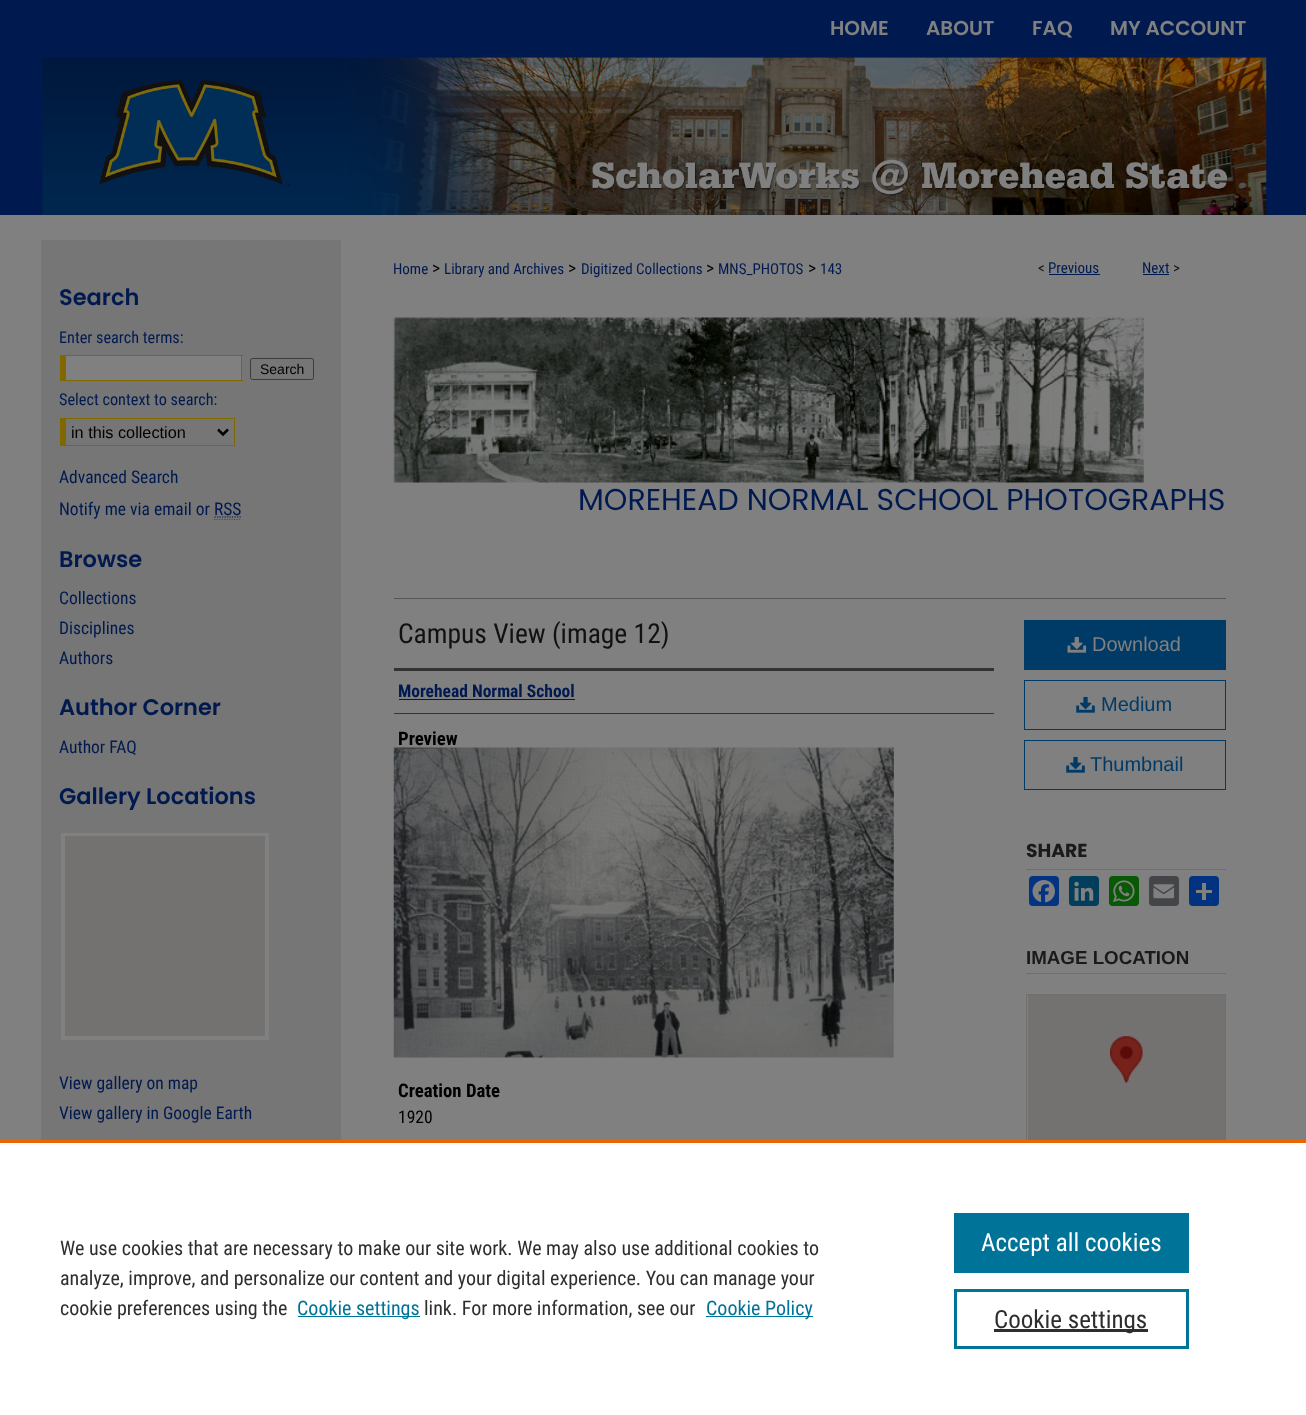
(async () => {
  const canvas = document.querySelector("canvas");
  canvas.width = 1306;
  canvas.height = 1415;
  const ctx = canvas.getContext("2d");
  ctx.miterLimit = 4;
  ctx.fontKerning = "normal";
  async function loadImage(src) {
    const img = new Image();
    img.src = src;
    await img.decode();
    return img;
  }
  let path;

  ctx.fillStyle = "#808080";
  ctx.fillRect(0, 0, 1306, 1415);
  ctx.fillStyle = "#001a50";
  ctx.fillRect(0, 0, 1306, 215);
  ctx.drawImage(await loadImage("img/1.png"), 42, 57, 1225, 158);
  for (const [x, y, w, h, color] of [
    [41, 240, 300, 900, "#767676"],
    [66, 356, 175, 24, "#808080"],
    [60, 355, 183, 1, "#806801"],
    [241, 355, 1, 26, "#806801"],
    [60, 380, 183, 1, "#806801"],
    [60, 355, 6, 26, "#806801"],
  ]) {
    ctx.fillStyle = color;
    ctx.fillRect(x, y, w, h);
  }
  ctx.beginPath();
  ctx.roundRect(250.5, 358.5, 63, 21, 2);
  ctx.strokeStyle = "#3b3b3b";
  ctx.stroke();
  for (const [x, y, w, h, color] of [
    [60, 418, 175, 1, "#806801"],
    [234, 418, 1, 28, "#806801"],
    [60, 445, 175, 1, "#806801"],
    [60, 418, 6, 28, "#806801"],
  ]) {
    ctx.fillStyle = color;
    ctx.fillRect(x, y, w, h);
  }
  path = new Path2D("M218 429.5L223 434.5L228 429.5");
  ctx.strokeStyle = "#000000";
  ctx.lineWidth = 2.5;
  ctx.stroke(path);
  path = new Path2D("M214.5 517H241.5");
  ctx.strokeStyle = "#001a50";
  ctx.lineWidth = 1.2;
  ctx.setLineDash([1.25, 1.25]);
  ctx.stroke(path);
  ctx.strokeStyle = "#808080";
  ctx.lineWidth = 4;
  ctx.setLineDash([]);
  ctx.strokeRect(63, 835, 204, 203);
  for (const [x, y, w, h, color] of [
    [65, 836, 200, 200, "#737270"],
    [1049, 274, 51, 1, "#001a50"],
    [1143, 274, 26, 1, "#001a50"],
  ]) {
    ctx.fillStyle = color;
    ctx.fillRect(x, y, w, h);
  }
  ctx.drawImage(await loadImage("img/2.png"), 393, 317, 751, 166);
  for (const [x, y, w, h, color] of [
    [394, 598, 832, 1, "#555555"],
    [394, 668, 600, 3, "#333333"],
    [394, 713, 600, 1, "#333333"],
    [399, 699, 176, 1, "#001a50"],
  ]) {
    ctx.fillStyle = color;
    ctx.fillRect(x, y, w, h);
  }
  ctx.drawImage(await loadImage("img/3.png"), 393, 747, 501, 311);
  ctx.fillStyle = "#003a66";
  ctx.fillRect(1024, 620, 202, 50);
  ctx.drawImage(await loadImage("img/4.png"), 1067, 636, 20, 17);
  ctx.strokeStyle = "#003a66";
  ctx.lineWidth = 1;
  ctx.strokeRect(1024.5, 680.5, 201, 49);
  ctx.drawImage(await loadImage("img/5.png"), 1076, 696, 19, 17);
  ctx.strokeRect(1024.5, 740.5, 201, 49);
  ctx.drawImage(await loadImage("img/5.png"), 1066, 756, 19, 17);
  ctx.fillStyle = "#6f6f6f";
  ctx.fillRect(1026, 869, 200, 1);
  ctx.fillStyle = "#043380";
  ctx.beginPath();
  ctx.roundRect(1029, 876, 30, 30, 4);
  ctx.fill();
  ctx.drawImage(await loadImage("img/6.png"), 1032, 880, 23, 23);
  ctx.fillStyle = "#003e5b";
  ctx.beginPath();
  ctx.roundRect(1069, 876, 30, 30, 4);
  ctx.fill();
  ctx.drawImage(await loadImage("img/7.png"), 1074, 881, 20, 20);
  ctx.fillStyle = "#095805";
  ctx.beginPath();
  ctx.roundRect(1109, 876, 30, 30, 4);
  ctx.fill();
  ctx.drawImage(await loadImage("img/8.png"), 1113, 880, 22, 22);
  ctx.fillStyle = "#444548";
  ctx.beginPath();
  ctx.roundRect(1149, 876, 30, 30, 4);
  ctx.fill();
  ctx.drawImage(await loadImage("img/9.png"), 1153, 884, 22, 15);
  ctx.fillStyle = "#013380";
  ctx.beginPath();
  ctx.roundRect(1189, 876, 30, 30, 4);
  ctx.fill();
  for (const [x, y, w, h, color] of [
    [1202, 883, 4, 17, "#808080"],
    [1196, 890, 16, 3, "#808080"],
    [1026, 973, 200, 1, "#6f6f6f"],
  ]) {
    ctx.fillStyle = color;
    ctx.fillRect(x, y, w, h);
  }
  ctx.strokeStyle = "#6f6f6f";
  ctx.strokeRect(1026.5, 994.5, 199, 176);
  ctx.fillStyle = "#737270";
  ctx.fillRect(1028, 995, 197, 145);
  ctx.drawImage(await loadImage("img/10.png"), 1110, 1036, 33, 47);
  for (const [x, y, w, h, color] of [
    [0, 1143, 1306, 272, "#ffffff"],
    [0, 1140, 1306, 3, "#eb6500"],
    [298, 1316, 122, 1, "#007398"],
    [706, 1316, 107, 1, "#007398"],
    [954, 1213, 235, 60, "#007398"],
  ]) {
    ctx.fillStyle = color;
    ctx.fillRect(x, y, w, h);
  }
  ctx.strokeStyle = "#007398";
  ctx.lineWidth = 3;
  ctx.strokeRect(955.5, 1290.5, 232, 57);
  ctx.fillStyle = "#2e2e2e";
  ctx.fillRect(994, 1329, 154, 3);
  ctx.font = "600 20px Poppins";
  ctx.fillStyle = "#808080";
  for (const [text, x, y] of [
    ["HOME", 830, 35],
    ["ABOUT", 926, 35],
    ["FAQ", 1032, 35],
    ["MY ACCOUNT", 1110, 35],
  ]) {
    ctx.fillText(text, x, y);
  }
  ctx.font = "600 22.5px Poppins";
  ctx.fillStyle = "#001a50";
  ctx.fillText("Search", 59, 305);
  ctx.font = "16.25px Roboto Condensed";
  ctx.fillText("Enter search terms:", 59, 343);
  ctx.font = "14px Liberation Sans";
  ctx.fillStyle = "#000000";
  ctx.fillText("Search", 260, 374);
  ctx.font = "16.25px Roboto Condensed";
  ctx.fillStyle = "#001a50";
  ctx.fillText("Select context to search:", 59, 405);
  ctx.font = "16.25px Liberation Sans";
  ctx.fillStyle = "#000000";
  ctx.fillText("in this collection", 71, 438);
  ctx.font = "17.5px Roboto Condensed";
  ctx.fillStyle = "#001a50";
  ctx.fillText("Advanced Search", 59, 483);
  ctx.fillText("Notify me via email or RSS", 59, 515);
  path = new Path2D("M214 519.5H241");
  ctx.strokeStyle = "#4d4d4d";
  ctx.lineWidth = 1.2;
  ctx.setLineDash([1.25, 1.25]);
  ctx.stroke(path);
  ctx.font = "600 22.5px Poppins";
  ctx.fillText("Browse", 59, 567);
  ctx.font = "17.5px Roboto Condensed";
  for (const [text, x, y] of [
    ["Collections", 59, 604],
    ["Disciplines", 59, 634],
    ["Authors", 59, 664],
  ]) {
    ctx.fillText(text, x, y);
  }
  ctx.font = "600 22.5px Poppins";
  ctx.fillText("Author Corner", 59, 715);
  ctx.font = "17.5px Roboto Condensed";
  ctx.fillText("Author FAQ", 59, 753);
  ctx.font = "600 22.5px Poppins";
  ctx.fillText("Gallery Locations", 59, 804);
  ctx.font = "17.5px Roboto Condensed";
  ctx.fillText("View gallery on map", 59, 1089);
  ctx.fillText("View gallery in Google Earth", 59, 1119);
  ctx.font = "15px Roboto Condensed";
  ctx.fillText("Home", 393, 274);
  ctx.font = "17.5px Roboto Condensed";
  ctx.fillStyle = "#000000";
  ctx.fillText(">", 432, 274);
  ctx.font = "15px Roboto Condensed";
  ctx.fillStyle = "#001a50";
  ctx.fillText("Library and Archives", 444, 274);
  ctx.font = "17.5px Roboto Condensed";
  ctx.fillStyle = "#000000";
  ctx.fillText(">", 568, 274);
  ctx.font = "15px Roboto Condensed";
  ctx.fillStyle = "#001a50";
  ctx.fillText("Digitized Collections", 581, 274);
  ctx.font = "17.5px Roboto Condensed";
  ctx.fillStyle = "#000000";
  ctx.fillText(">", 706, 274);
  ctx.font = "15px Roboto Condensed";
  ctx.fillStyle = "#001a50";
  ctx.fillText("MNS_PHOTOS", 718, 274);
  ctx.font = "17.5px Roboto Condensed";
  ctx.fillStyle = "#000000";
  ctx.fillText(">", 808, 274);
  ctx.font = "15px Roboto Condensed";
  ctx.fillStyle = "#001a50";
  ctx.fillText("143", 820, 274);
  ctx.fillStyle = "#111111";
  ctx.fillText("<", 1038, 273);
  ctx.fillStyle = "#001a50";
  ctx.fillText("Previous", 1048, 273);
  ctx.fillText("Next", 1142, 273);
  ctx.fillStyle = "#111111";
  ctx.fillText(">", 1173, 273);
  ctx.font = "30px Poppins";
  ctx.fillStyle = "#001a50";
  ctx.fillText("MOREHEAD NORMAL SCHOOL PHOTOGRAPHS", 578, 510);
  ctx.font = "27.5px Roboto Condensed";
  ctx.fillStyle = "#111111";
  ctx.fillText("Campus View (image 12)", 398, 643);
  ctx.font = "bold 17.5px Roboto Condensed";
  ctx.fillStyle = "#001a50";
  ctx.fillText("Morehead Normal School", 398, 697);
  ctx.font = "bold 18.75px Roboto Condensed";
  ctx.fillStyle = "#000000";
  ctx.fillText("Preview", 398, 745);
  ctx.fillText("Creation Date", 398, 1097);
  ctx.font = "17.5px Roboto Condensed";
  ctx.fillText("1920", 398, 1123);
  ctx.font = "20px Liberation Sans";
  ctx.fillStyle = "#808080";
  ctx.fillText("Download", 1092, 651);
  ctx.fillStyle = "#003a66";
  ctx.fillText("Medium", 1101, 711);
  ctx.fillText("Thumbnail", 1090, 771);
  ctx.font = "bold 18.75px Poppins";
  ctx.fillStyle = "#1a1a1a";
  ctx.fillText("SHARE", 1026, 857);
  ctx.font = "bold 18.75px Liberation Sans";
  ctx.fillText("IMAGE LOCATION", 1026, 964);
  ctx.font = "20px Roboto Condensed";
  ctx.fillStyle = "#2e2e2e";
  for (const [text, x, y] of [
    ["We use cookies that are necessary to make our site work. We may also use additional cookies to", 60, 1255],
    ["analyze, improve, and personalize our content and your digital experience. You can manage your", 60, 1285],
    ["cookie preferences using the", 60, 1315],
  ]) {
    ctx.fillText(text, x, y);
  }
  ctx.fillStyle = "#007398";
  ctx.fillText("Cookie settings", 297, 1315);
  ctx.fillStyle = "#2e2e2e";
  ctx.fillText("link. For more information, see our", 424, 1315);
  ctx.fillStyle = "#007398";
  ctx.fillText("Cookie Policy", 706, 1315);
  ctx.font = "25px Roboto Condensed";
  ctx.fillStyle = "#ffffff";
  ctx.fillText("Accept all cookies", 981, 1251);
  ctx.fillStyle = "#2e2e2e";
  ctx.fillText("Cookie settings", 994, 1328);
})();
